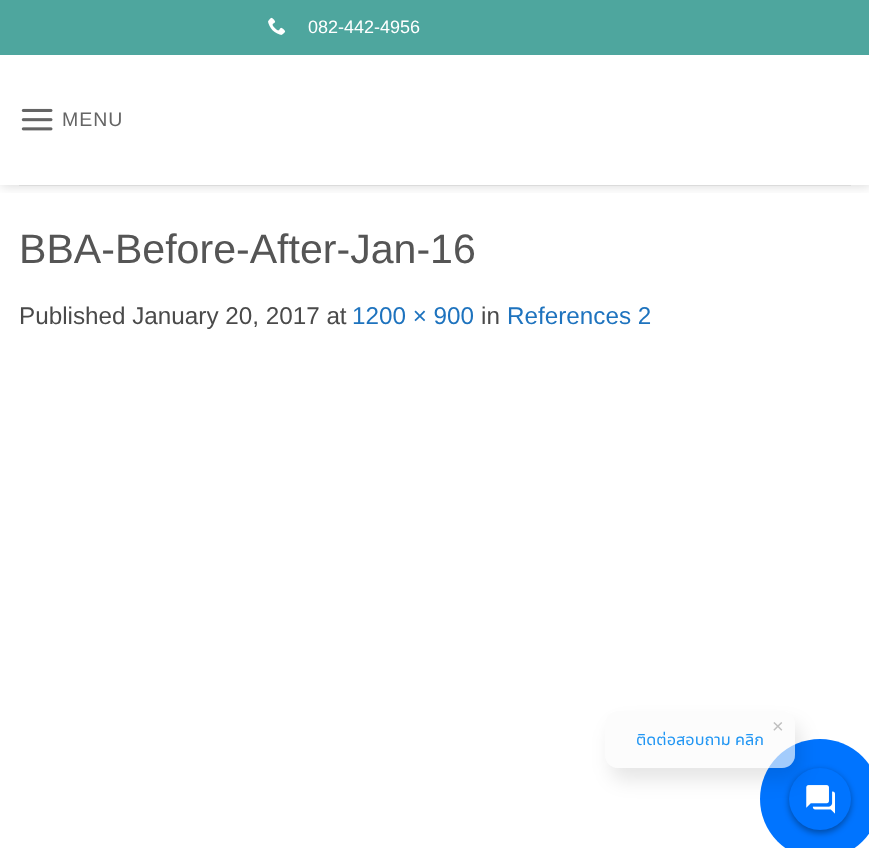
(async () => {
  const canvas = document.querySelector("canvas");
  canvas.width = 869;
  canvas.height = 848;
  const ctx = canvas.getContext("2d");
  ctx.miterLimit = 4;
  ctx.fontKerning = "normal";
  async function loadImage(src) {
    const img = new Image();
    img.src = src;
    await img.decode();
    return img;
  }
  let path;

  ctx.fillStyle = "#ffffff";
  ctx.fillRect(0, 0, 869, 848);
  ctx.save();
  ctx.beginPath();
  ctx.rect(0, 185, 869, 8);
  ctx.clip();
  ctx.fillStyle = "rgba(0, 0, 0, 0.15)";
  ctx.filter = "blur(6px)";
  ctx.beginPath();
  ctx.rect(1, 1, 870, 185);
  ctx.fill();
  ctx.filter = "none";
  ctx.restore();
  ctx.fillStyle = "#4ea69e";
  ctx.fillRect(0, 0, 869, 55);
  ctx.drawImage(await loadImage("img/1.png"), 268, 17, 18, 18);
  ctx.drawImage(await loadImage("img/2.png"), 21, 108, 32, 23);
  ctx.fillStyle = "#dbdbdb";
  ctx.fillRect(19, 185, 832, 1);
  ctx.fillStyle = "#0074ff";
  ctx.beginPath();
  ctx.arc(820, 799, 60, 0, Math.PI * 2);
  ctx.fill();
  ctx.fillStyle = "rgba(255, 255, 255, 0.3)";
  ctx.beginPath();
  ctx.roundRect(605, 711, 190, 57, 13);
  ctx.fill();
  ctx.fillStyle = "rgba(0, 0, 0, 0.35)";
  ctx.filter = "blur(3px)";
  ctx.beginPath();
  ctx.roundRect(789, 770, 62, 63, 31);
  ctx.fill();
  ctx.filter = "none";
  ctx.fillStyle = "#0074ff";
  ctx.beginPath();
  ctx.arc(820, 799, 31, 0, Math.PI * 2);
  ctx.fill();
  ctx.drawImage(await loadImage("img/3.png"), 806, 785, 29, 29);
  ctx.save();
  path = new Path2D("M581 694H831V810H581ZM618 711H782C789 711 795 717 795 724V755C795 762 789 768 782 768H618C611 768 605 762 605 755V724C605 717 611 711 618 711Z");
  ctx.clip(path, "evenodd");
  ctx.fillStyle = "rgba(0, 0, 0, 0.1)";
  ctx.filter = "blur(9.5px)";
  ctx.beginPath();
  ctx.roundRect(611, 724, 190, 56, 13);
  ctx.fill();
  ctx.filter = "none";
  ctx.restore();
  ctx.fillStyle = "rgba(250, 250, 250, 0.5)";
  ctx.beginPath();
  ctx.roundRect(605, 711, 190, 57, 13);
  ctx.fill();
  ctx.font = "18px Liberation Sans";
  ctx.fillStyle = "#ffffff";
  ctx.fillText("082-442-4956", 308, 33);
  ctx.letterSpacing = "1px";
  ctx.font = "19.5px Liberation Sans";
  ctx.fillStyle = "#656565";
  ctx.fillText("MENU", 62, 126);
  ctx.letterSpacing = "0px";
  ctx.font = "41.1px Liberation Sans";
  ctx.fillStyle = "#555555";
  ctx.fillText("BBA-Before-After-Jan-16", 19, 263);
  ctx.font = "24.25px Liberation Sans";
  ctx.fillStyle = "#4a4a4a";
  ctx.fillText("Published January 20, 2017 at", 19, 324);
  ctx.fillStyle = "#1e73be";
  ctx.fillText("1200 × 900", 352, 324);
  ctx.fillStyle = "#4a4a4a";
  ctx.fillText("in", 481, 324);
  ctx.fillStyle = "#1e73be";
  ctx.fillText("References 2", 507, 324);
  ctx.font = "20px Liberation Sans";
  ctx.fillStyle = "#c0c0c0";
  ctx.fillText("×", 772, 733);
  ctx.save();
  ctx.beginPath();
  ctx.rect(636, 724, 128, 31);
  ctx.clip();
  ctx.font = "16.25px Noto Sans Thai UI";
  ctx.fillStyle = "#2196f3";
  ctx.fillText("ติดต่อสอบถาม คลิก", 636, 745);
  ctx.restore();
})();
